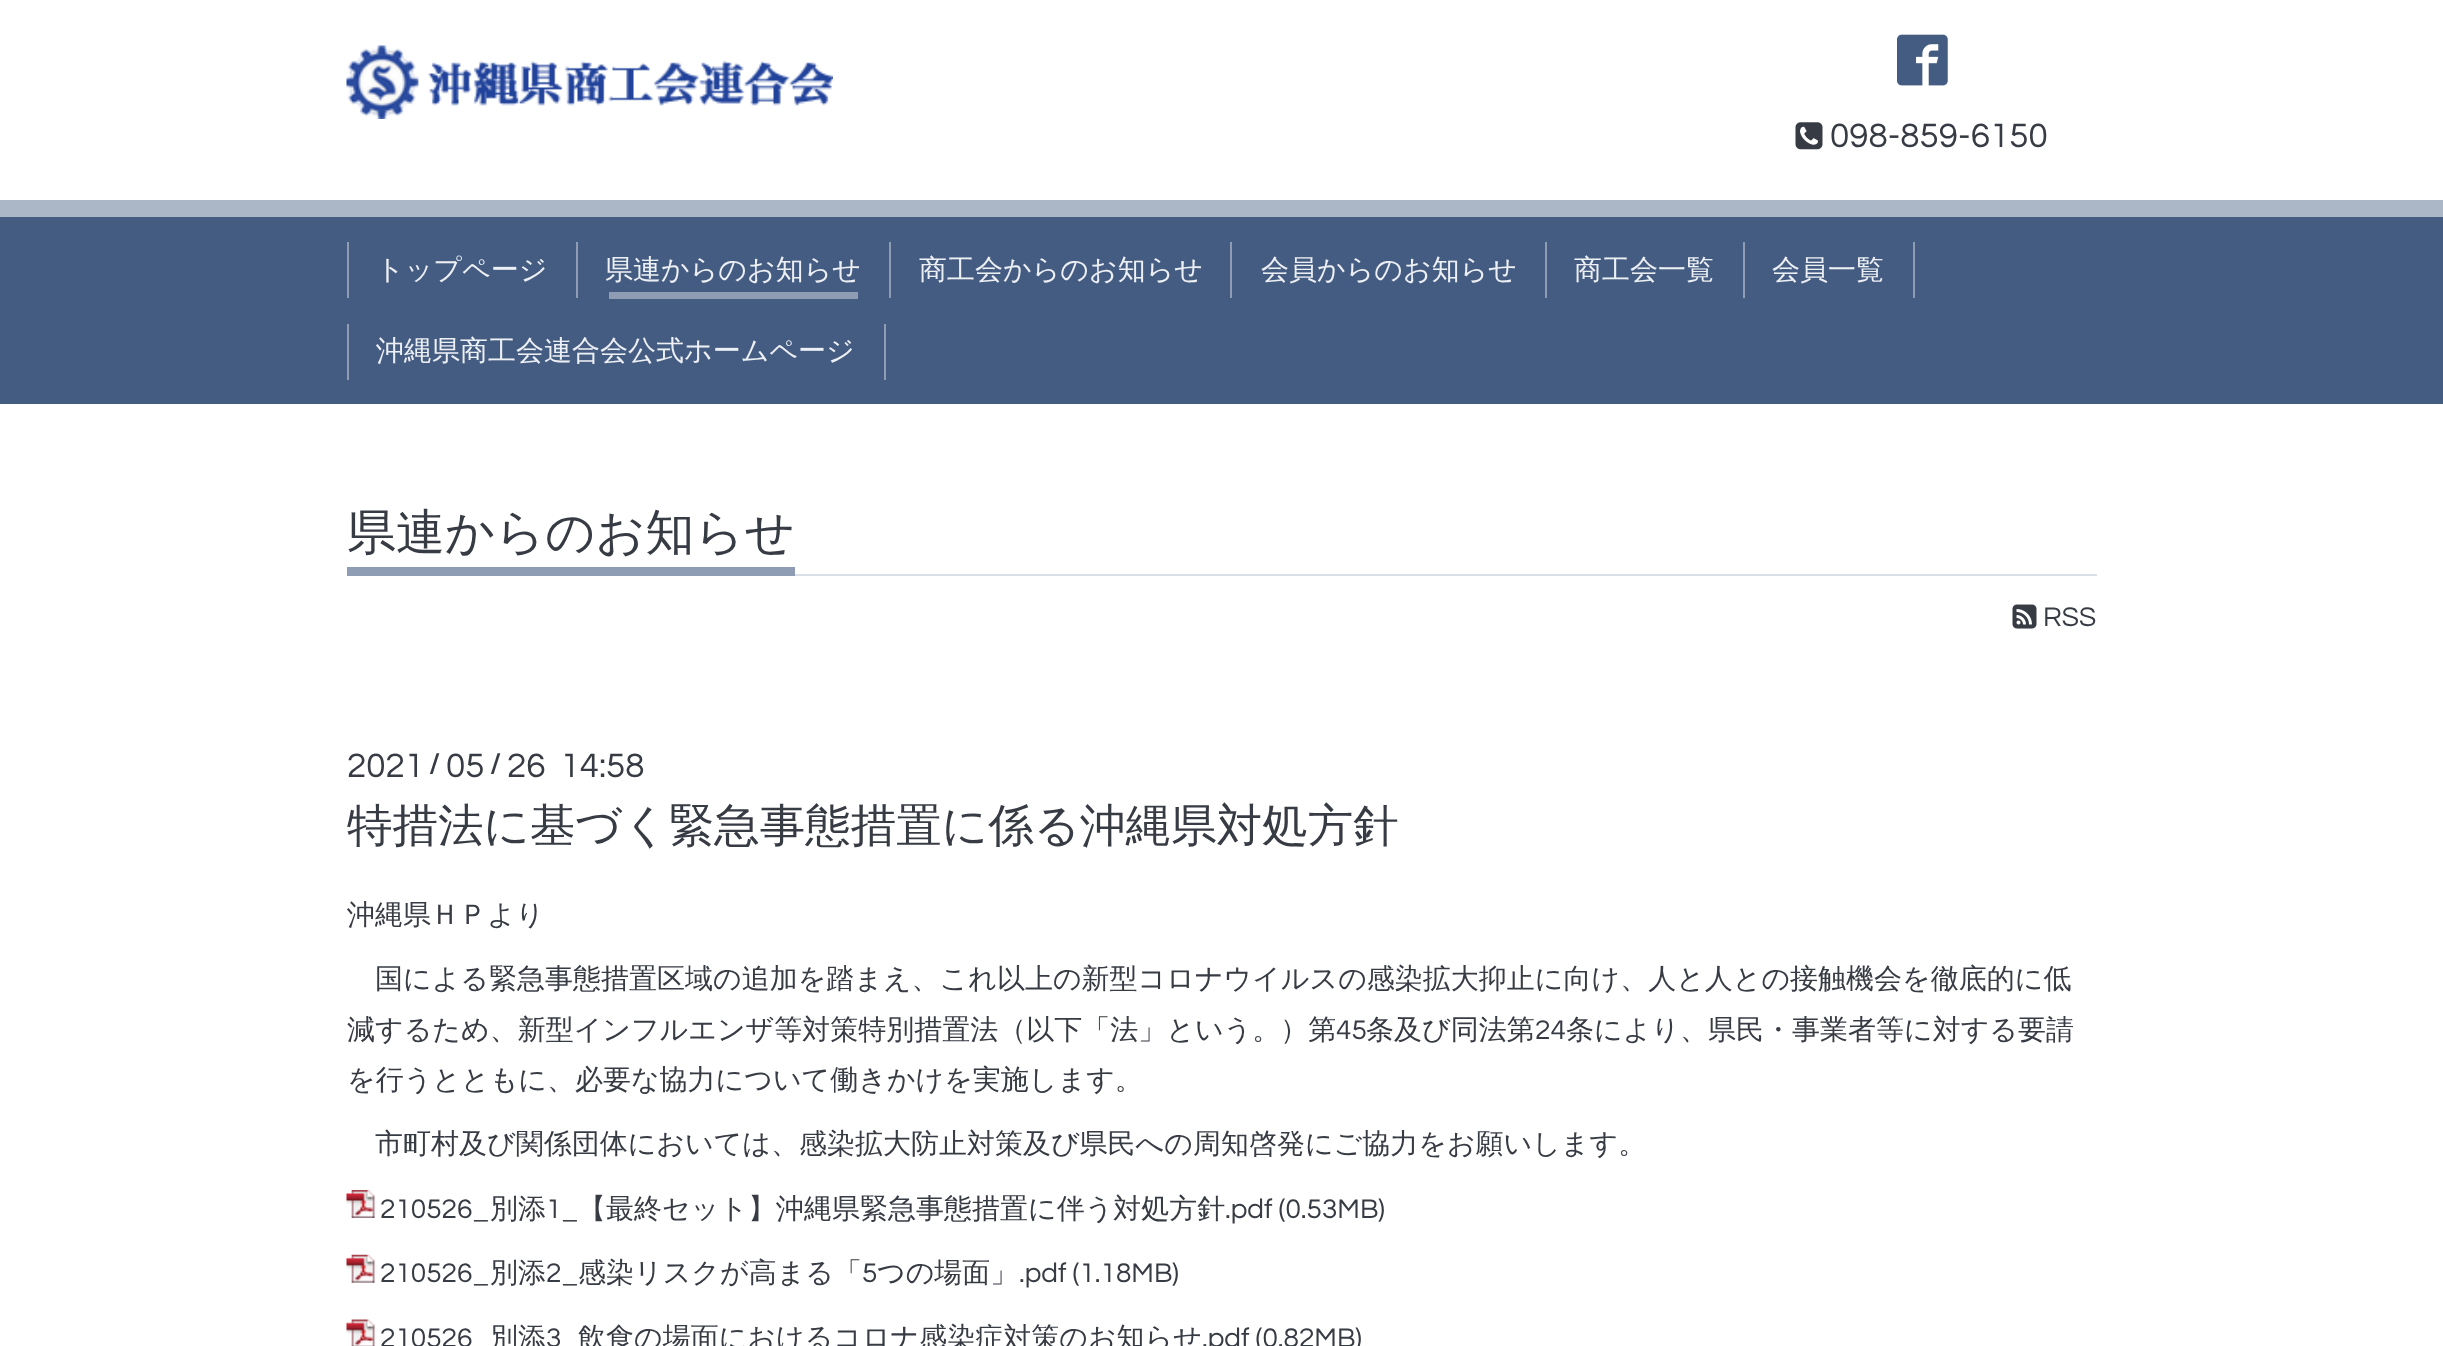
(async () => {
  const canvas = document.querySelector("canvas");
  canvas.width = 2443;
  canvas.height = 1346;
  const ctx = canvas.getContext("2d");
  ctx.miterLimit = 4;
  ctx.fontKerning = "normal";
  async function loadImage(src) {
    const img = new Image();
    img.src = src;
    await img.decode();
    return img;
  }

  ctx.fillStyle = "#ffffff";
  ctx.fillRect(0, 0, 2443, 1346);
  ctx.drawImage(await loadImage("img/1.png"), 346, 45, 487, 74);
  ctx.drawImage(await loadImage("img/2.png"), 1897, 34, 51, 52);
  ctx.drawImage(await loadImage("img/3.png"), 1795, 122, 28, 28);
  for (const [x, y, w, h, color] of [
    [0, 200, 2443, 17, "#abb6c7"],
    [0, 217, 2443, 187, "#455c82"],
    [576, 242, 2, 56, "#8f9db4"],
    [347, 242, 2, 56, "#8f9db4"],
    [889, 242, 2, 56, "#8f9db4"],
    [609, 292, 249, 7, "#8f9db4"],
    [1230, 242, 2, 56, "#8f9db4"],
    [1545, 242, 2, 56, "#8f9db4"],
    [1743, 242, 2, 56, "#8f9db4"],
    [1913, 242, 2, 56, "#8f9db4"],
    [884, 324, 2, 56, "#8f9db4"],
    [347, 324, 2, 56, "#8f9db4"],
    [795, 574, 1302, 2, "#dadee6"],
    [347, 567, 448, 9, "#8f9db4"],
  ]) {
    ctx.fillStyle = color;
    ctx.fillRect(x, y, w, h);
  }
  ctx.drawImage(await loadImage("img/4.png"), 2012, 604, 25, 25);
  ctx.drawImage(await loadImage("img/5.png"), 346, 1190, 29, 28);
  ctx.drawImage(await loadImage("img/6.png"), 346, 1254, 29, 29);
  ctx.drawImage(await loadImage("img/7.png"), 346, 1319, 29, 27);
  ctx.font = "35px Questrial";
  ctx.fillStyle = "#373b43";
  ctx.fillText("098-859-6150", 1830, 147);
  ctx.font = "500 28px WenQuanYi Zen Hei";
  ctx.fillStyle = "#eceff3";
  for (const [text, x, y] of [
    ["トップページ", 376, 279],
    ["県連からのお知らせ", 605, 279],
    ["商工会からのお知らせ", 919, 279],
    ["会員からのお知らせ", 1261, 279],
    ["商工会一覧", 1574, 279],
    ["会員一覧", 1772, 279],
    ["沖縄県商工会連合会公式ホームページ", 376, 360],
  ]) {
    ctx.fillText(text, x, y);
  }
  ctx.font = "500 49px WenQuanYi Zen Hei";
  ctx.fillStyle = "#373b43";
  ctx.fillText("県連からのお知らせ", 347, 549);
  ctx.font = "28px Questrial";
  ctx.fillText("RSS", 2043, 626);
  ctx.font = "35px Questrial";
  ctx.fillText("2021", 347, 777);
  ctx.font = "bold 28px Questrial";
  ctx.fillText("/", 429, 773);
  ctx.font = "35px Questrial";
  ctx.fillText("05", 446, 777);
  ctx.font = "bold 28px Questrial";
  ctx.fillText("/", 490, 773);
  ctx.font = "35px Questrial";
  ctx.fillText("26  14:58", 507, 777);
  ctx.font = "500 45.5px WenQuanYi Zen Hei";
  ctx.fillText("特措法に基づく緊急事態措置に係る沖縄県対処方針", 347, 841);
  ctx.font = "500 28px WenQuanYi Zen Hei";
  for (const [text, x, y] of [
    ["沖縄県ＨＰより", 347, 924],
    ["国による緊急事態措置区域の追加を踏まえ、これ以上の新型コロナウイルスの感染拡大抑止に向け、人と人との接触機会を徹底的に低", 375, 988],
    ["減するため、新型インフルエンザ等対策特別措置法（以下「法」という。）第", 347, 1039],
  ]) {
    ctx.fillText(text, x, y);
  }
  ctx.font = "28px Questrial";
  ctx.fillText("45", 1336, 1039);
  ctx.font = "500 28px WenQuanYi Zen Hei";
  ctx.fillText("条及び同法第", 1366, 1039);
  ctx.font = "28px Questrial";
  ctx.fillText("24", 1535, 1039);
  ctx.font = "500 28px WenQuanYi Zen Hei";
  for (const [text, x, y] of [
    ["条により、県民・事業者等に対する要請", 1566, 1039],
    ["を行うとともに、必要な協力について働きかけを実施します。", 347, 1089],
    ["市町村及び関係団体においては、感染拡大防止対策及び県民への周知啓発にご協力をお願いします。", 375, 1153],
  ]) {
    ctx.fillText(text, x, y);
  }
  ctx.font = "28px Questrial";
  ctx.fillText("210526_", 380, 1218);
  ctx.font = "500 28px WenQuanYi Zen Hei";
  ctx.fillText("別添", 490, 1218);
  ctx.font = "28px Questrial";
  ctx.fillText("1_", 546, 1218);
  ctx.font = "500 28px WenQuanYi Zen Hei";
  ctx.fillText("【最終セット】沖縄県緊急事態措置に伴う対処方針", 578, 1218);
  ctx.font = "28px Questrial";
  ctx.fillText(".pdf (0.53MB)", 1225, 1218);
  ctx.fillText("210526_", 380, 1282);
  ctx.font = "500 28px WenQuanYi Zen Hei";
  ctx.fillText("別添", 490, 1282);
  ctx.font = "28px Questrial";
  ctx.fillText("2_", 546, 1282);
  ctx.font = "500 28px WenQuanYi Zen Hei";
  ctx.fillText("感染リスクが高まる「", 578, 1282);
  ctx.font = "28px Questrial";
  ctx.fillText("5", 862, 1282);
  ctx.font = "500 28px WenQuanYi Zen Hei";
  ctx.fillText("つの場面」", 877, 1282);
  ctx.font = "28px Questrial";
  ctx.fillText(".pdf (1.18MB)", 1019, 1282);
  ctx.fillText("210526", 380, 1347);
  ctx.font = "500 28px WenQuanYi Zen Hei";
  ctx.fillText("別添", 490, 1347);
  ctx.font = "28px Questrial";
  ctx.fillText("3", 546, 1347);
  ctx.font = "500 28px WenQuanYi Zen Hei";
  ctx.fillText("飲食の場面におけるコロナ感染症対策のお知らせ", 578, 1347);
  ctx.font = "28px Questrial";
  ctx.fillText(".pdf (0.82MB)", 1202, 1347);
})();
